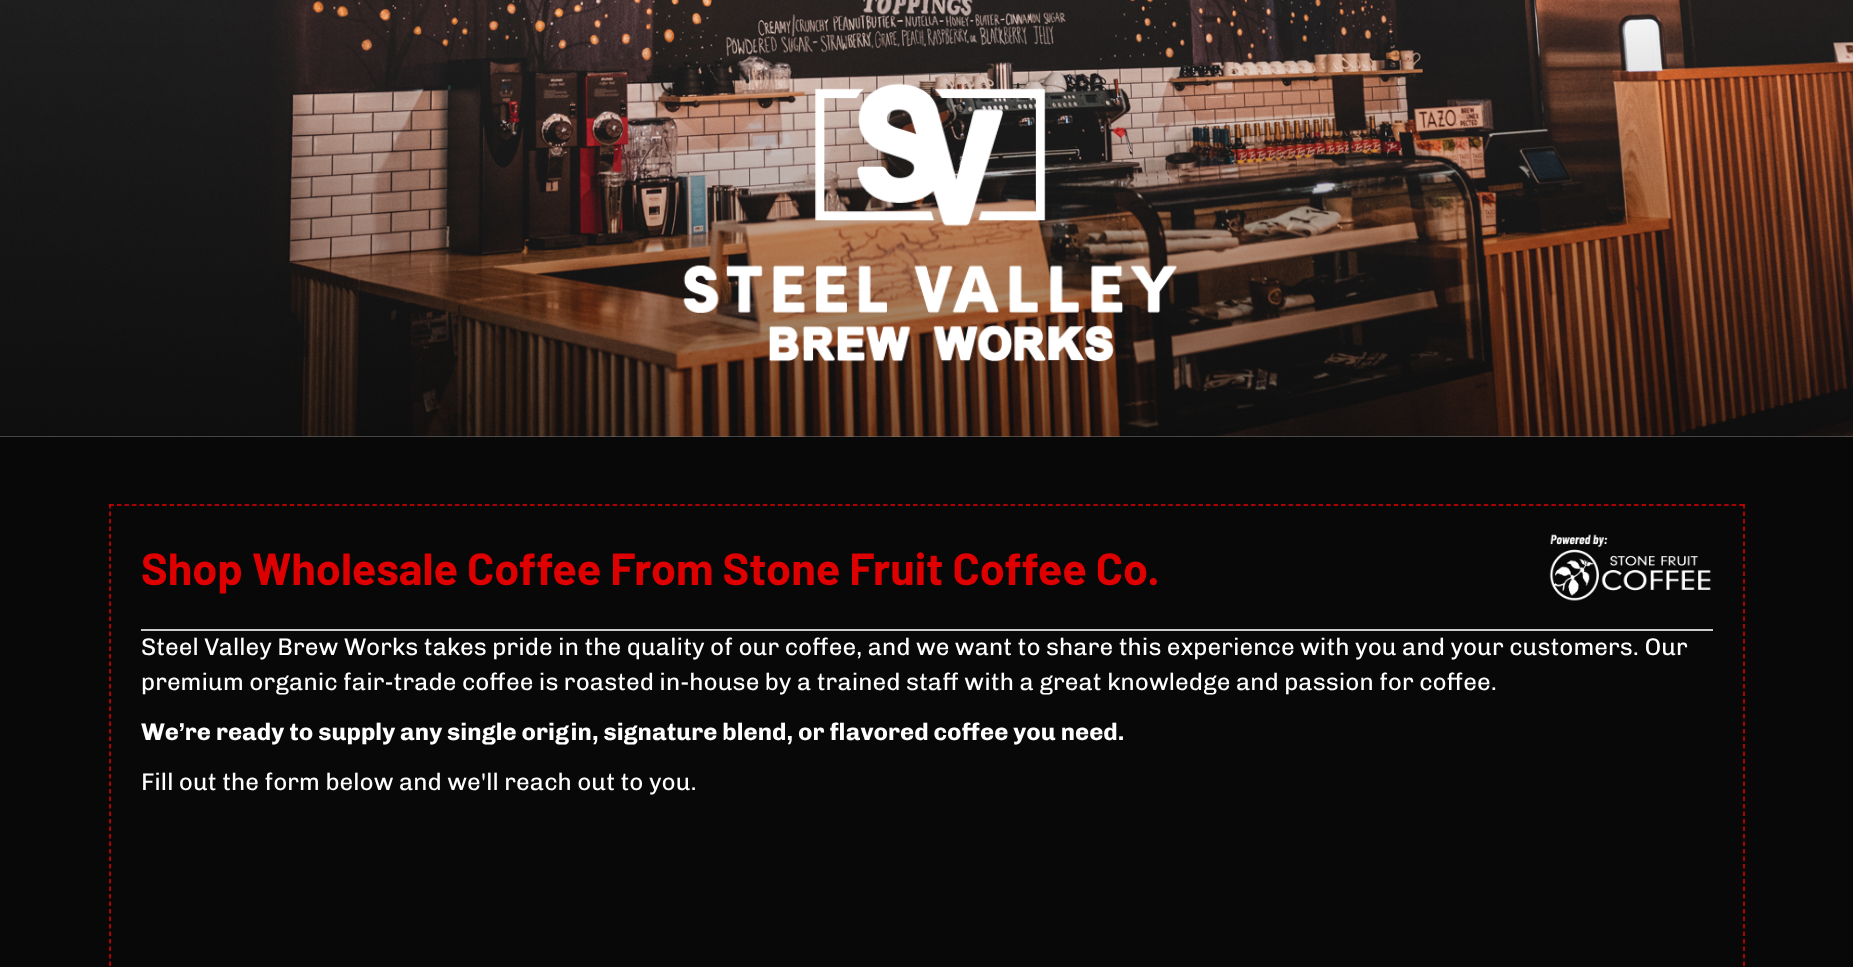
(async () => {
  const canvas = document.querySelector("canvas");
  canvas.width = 1853;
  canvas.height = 967;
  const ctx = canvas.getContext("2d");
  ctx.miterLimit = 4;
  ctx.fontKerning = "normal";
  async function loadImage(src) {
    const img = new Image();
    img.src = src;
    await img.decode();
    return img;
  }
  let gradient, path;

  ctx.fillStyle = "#ffffff";
  ctx.fillRect(0, 0, 1853, 967);
  ctx.drawImage(await loadImage("img/1.png"), 0, 0, 1853, 437);
  gradient = ctx.createLinearGradient(927, 0, 927, 437);
  gradient.addColorStop(0, "rgba(0, 0, 0, 0)");
  gradient.addColorStop(1, "rgba(0, 0, 0, 0.51)");
  ctx.fillStyle = gradient;
  ctx.fillRect(0, 18, 1853, 419);
  ctx.drawImage(await loadImage("img/2.png"), 683, 83, 494, 279);
  ctx.fillStyle = "#080808";
  ctx.fillRect(0, 437, 1853, 530);
  path = new Path2D("M109.5 505H1744.5");
  ctx.strokeStyle = "#de0000";
  ctx.lineWidth = 1.5;
  ctx.setLineDash([4.5, 3.01]);
  ctx.stroke(path);
  path = new Path2D("M1744 504V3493.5");
  ctx.setLineDash([4.5, 3]);
  ctx.stroke(path);
  path = new Path2D("M110 504V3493.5");
  ctx.stroke(path);
  ctx.drawImage(await loadImage("img/3.png"), 1549, 534, 162, 67);
  ctx.fillStyle = "#cccccc";
  ctx.fillRect(141, 629, 1572, 2);
  ctx.font = "bold 45px Barlow";
  ctx.fillStyle = "#de0000";
  ctx.fillText("Shop Wholesale Coffee From Stone Fruit Coffee Co.", 141, 585);
  ctx.font = "24px Chivo";
  ctx.fillStyle = "#ffffff";
  ctx.fillText("Steel Valley Brew Works takes pride in the quality of our coffee, and we want to share this experience with you and your customers. Our", 141, 655);
  ctx.fillText("premium organic fair-trade coffee is roasted in-house by a trained staff with a great knowledge and passion for coffee.", 141, 690);
  ctx.font = "bold 24px Chivo";
  ctx.fillText("We’re ready to supply any single origin, signature blend, or flavored coffee you need.", 141, 740);
  ctx.font = "24px Chivo";
  ctx.fillText("Fill out the form below and we'll reach out to you.", 141, 790);
})();
